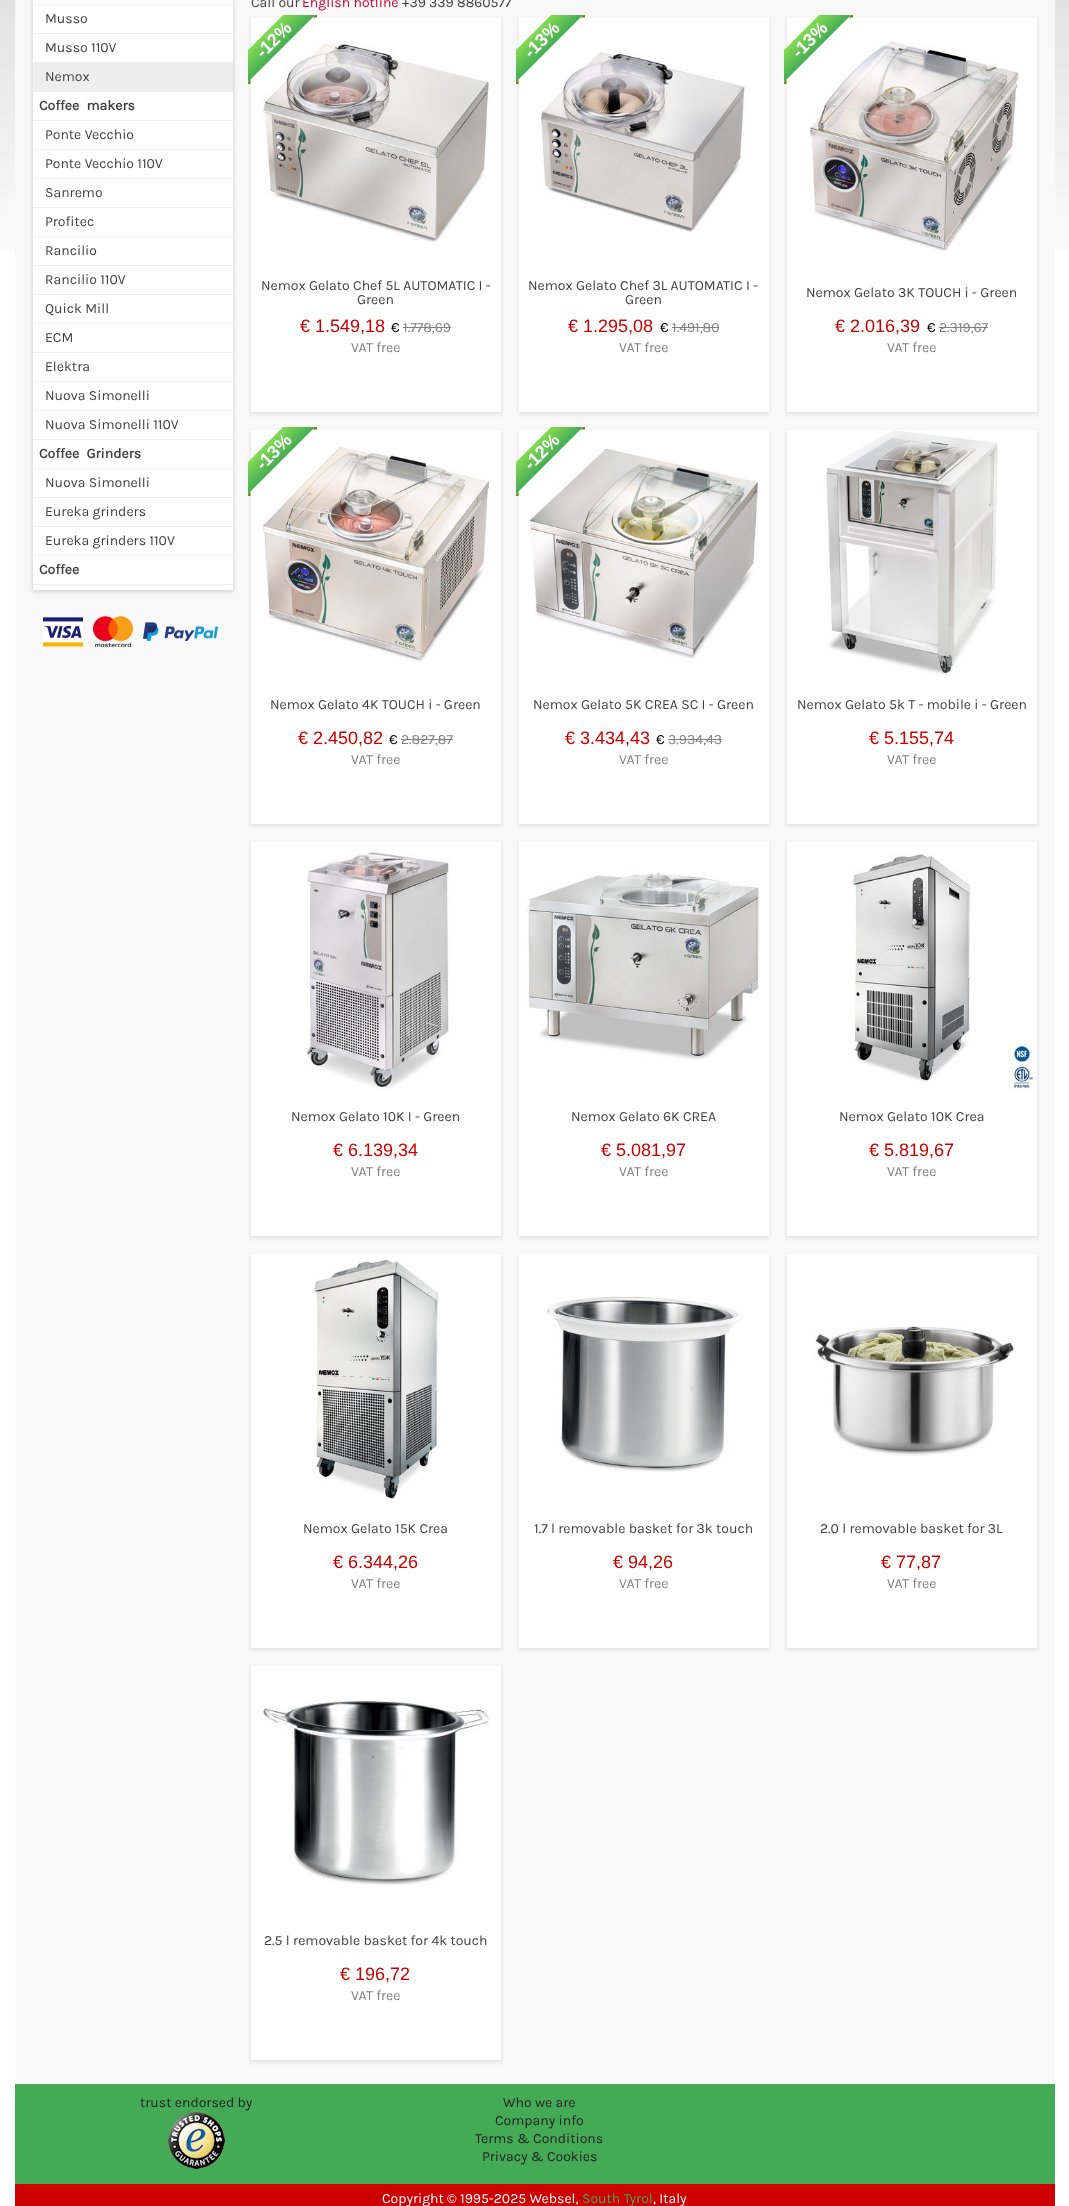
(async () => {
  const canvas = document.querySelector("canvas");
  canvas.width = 1069;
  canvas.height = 2206;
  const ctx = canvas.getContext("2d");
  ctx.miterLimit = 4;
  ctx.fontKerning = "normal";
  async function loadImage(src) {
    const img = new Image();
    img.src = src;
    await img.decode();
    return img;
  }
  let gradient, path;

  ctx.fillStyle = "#ffffff";
  ctx.fillRect(0, 0, 1069, 2206);
  ctx.drawImage(await loadImage("img/1.png"), 0, 0, 1069, 249);
  ctx.fillStyle = "#f8f8f8";
  ctx.fillRect(15, 0, 1040, 2084);
  ctx.fillStyle = "rgba(0, 0, 0, 0.2)";
  ctx.filter = "blur(2px)";
  ctx.beginPath();
  ctx.rect(33, -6, 200, 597);
  ctx.fill();
  ctx.filter = "none";
  for (const [x, y, w, h, color] of [
    [33, 0, 200, 590, "#ffffff"],
    [33, 4, 200, 1, "#eeeeee"],
    [33, 33, 200, 1, "#eeeeee"],
    [33, 62, 200, 30, "#eeeeee"],
    [33, 120, 200, 1, "#eeeeee"],
    [33, 149, 200, 1, "#eeeeee"],
    [33, 178, 200, 1, "#eeeeee"],
    [33, 207, 200, 1, "#eeeeee"],
    [33, 236, 200, 1, "#eeeeee"],
    [33, 265, 200, 1, "#eeeeee"],
    [33, 294, 200, 1, "#eeeeee"],
    [33, 323, 200, 1, "#eeeeee"],
    [33, 352, 200, 1, "#eeeeee"],
    [33, 381, 200, 1, "#eeeeee"],
    [33, 410, 200, 1, "#eeeeee"],
    [33, 439, 200, 1, "#eeeeee"],
    [33, 468, 200, 1, "#eeeeee"],
    [33, 497, 200, 1, "#eeeeee"],
    [33, 526, 200, 1, "#eeeeee"],
    [33, 555, 200, 1, "#eeeeee"],
    [33, 584, 200, 1, "#eeeeee"],
  ]) {
    ctx.fillStyle = color;
    ctx.fillRect(x, y, w, h);
  }
  ctx.drawImage(await loadImage("img/2.png"), 43, 616, 175, 31);
  ctx.fillStyle = "rgba(0, 0, 0, 0.1)";
  ctx.filter = "blur(2px)";
  ctx.beginPath();
  ctx.rect(251, 20, 250, 394);
  ctx.fill();
  ctx.filter = "none";
  ctx.fillStyle = "#ffffff";
  ctx.fillRect(251, 18, 250, 394);
  ctx.drawImage(await loadImage("img/3.png"), 262, 43, 228, 199);
  ctx.save();
  ctx.beginPath();
  ctx.rect(248, 15, 70, 70);
  ctx.clip();
  gradient = ctx.createLinearGradient(265, 32, 282, 49);
  gradient.addColorStop(0, "#88dd55");
  gradient.addColorStop(1, "#44aa55");
  ctx.fillStyle = gradient;
  path = new Path2D("M230 68L301-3L317 13L246 84Z");
  ctx.fill(path);
  ctx.fillStyle = "#6e8900";
  path = new Path2D("M312.5 17.5L317 13.5V17.5Z");
  ctx.fill(path);
  path = new Path2D("M246.5 84L250.5 79.5V84Z");
  ctx.fill(path);
  ctx.restore();
  ctx.fillStyle = "#808080";
  ctx.fillRect(403, 327, 48, 1);
  ctx.fillStyle = "rgba(0, 0, 0, 0.1)";
  ctx.filter = "blur(2px)";
  ctx.beginPath();
  ctx.rect(519, 20, 250, 394);
  ctx.fill();
  ctx.filter = "none";
  ctx.fillStyle = "#ffffff";
  ctx.fillRect(519, 18, 250, 394);
  ctx.drawImage(await loadImage("img/4.png"), 540, 51, 207, 181);
  ctx.save();
  ctx.beginPath();
  ctx.rect(516, 15, 70, 70);
  ctx.clip();
  gradient = ctx.createLinearGradient(533, 32, 550, 49);
  gradient.addColorStop(0, "#88dd55");
  gradient.addColorStop(1, "#44aa55");
  ctx.fillStyle = gradient;
  path = new Path2D("M498 68L569-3L585 13L514 84Z");
  ctx.fill(path);
  ctx.fillStyle = "#6e8900";
  path = new Path2D("M580.5 17.5L585 13.5V17.5Z");
  ctx.fill(path);
  path = new Path2D("M514.5 84L518.5 79.5V84Z");
  ctx.fill(path);
  ctx.restore();
  ctx.fillStyle = "#808080";
  ctx.fillRect(672, 327, 47, 1);
  ctx.fillStyle = "rgba(0, 0, 0, 0.1)";
  ctx.filter = "blur(2px)";
  ctx.beginPath();
  ctx.rect(787, 20, 250, 394);
  ctx.fill();
  ctx.filter = "none";
  ctx.fillStyle = "#ffffff";
  ctx.fillRect(787, 18, 250, 394);
  ctx.drawImage(await loadImage("img/5.png"), 809, 41, 211, 211);
  ctx.save();
  ctx.beginPath();
  ctx.rect(784, 15, 70, 70);
  ctx.clip();
  gradient = ctx.createLinearGradient(801, 32, 818, 49);
  gradient.addColorStop(0, "#88dd55");
  gradient.addColorStop(1, "#44aa55");
  ctx.fillStyle = gradient;
  path = new Path2D("M766 68L837-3L853 13L782 84Z");
  ctx.fill(path);
  ctx.fillStyle = "#6e8900";
  path = new Path2D("M848.5 17.5L853 13.5V17.5Z");
  ctx.fill(path);
  path = new Path2D("M782.5 84L786.5 79.5V84Z");
  ctx.fill(path);
  ctx.restore();
  ctx.fillStyle = "#808080";
  ctx.fillRect(939, 327, 49, 1);
  ctx.fillStyle = "rgba(0, 0, 0, 0.1)";
  ctx.filter = "blur(2px)";
  ctx.beginPath();
  ctx.rect(251, 432, 250, 394);
  ctx.fill();
  ctx.filter = "none";
  ctx.fillStyle = "#ffffff";
  ctx.fillRect(251, 430, 250, 394);
  ctx.drawImage(await loadImage("img/6.png"), 262, 446, 228, 216);
  ctx.save();
  ctx.beginPath();
  ctx.rect(248, 427, 70, 70);
  ctx.clip();
  gradient = ctx.createLinearGradient(265, 444, 282, 461);
  gradient.addColorStop(0, "#88dd55");
  gradient.addColorStop(1, "#44aa55");
  ctx.fillStyle = gradient;
  path = new Path2D("M230 480L301 409L317 425L246 496Z");
  ctx.fill(path);
  ctx.fillStyle = "#6e8900";
  path = new Path2D("M312.5 429.5L317 425.5V429.5Z");
  ctx.fill(path);
  path = new Path2D("M246.5 496L250.5 491.5V496Z");
  ctx.fill(path);
  ctx.restore();
  ctx.fillStyle = "#808080";
  ctx.fillRect(401, 739, 52, 1);
  ctx.fillStyle = "rgba(0, 0, 0, 0.1)";
  ctx.filter = "blur(2px)";
  ctx.beginPath();
  ctx.rect(519, 432, 250, 394);
  ctx.fill();
  ctx.filter = "none";
  ctx.fillStyle = "#ffffff";
  ctx.fillRect(519, 430, 250, 394);
  ctx.drawImage(await loadImage("img/7.png"), 529, 448, 229, 211);
  ctx.save();
  ctx.beginPath();
  ctx.rect(516, 427, 70, 70);
  ctx.clip();
  gradient = ctx.createLinearGradient(533, 444, 550, 461);
  gradient.addColorStop(0, "#88dd55");
  gradient.addColorStop(1, "#44aa55");
  ctx.fillStyle = gradient;
  path = new Path2D("M498 480L569 409L585 425L514 496Z");
  ctx.fill(path);
  ctx.fillStyle = "#6e8900";
  path = new Path2D("M580.5 429.5L585 425.5V429.5Z");
  ctx.fill(path);
  path = new Path2D("M514.5 496L518.5 491.5V496Z");
  ctx.fill(path);
  ctx.restore();
  ctx.fillStyle = "#808080";
  ctx.fillRect(668, 739, 54, 1);
  ctx.fillStyle = "rgba(0, 0, 0, 0.1)";
  ctx.filter = "blur(2px)";
  ctx.beginPath();
  ctx.rect(787, 432, 250, 394);
  ctx.fill();
  ctx.filter = "none";
  ctx.fillStyle = "#ffffff";
  ctx.fillRect(787, 430, 250, 394);
  ctx.drawImage(await loadImage("img/8.png"), 826, 430, 172, 246);
  ctx.fillStyle = "rgba(0, 0, 0, 0.1)";
  ctx.filter = "blur(2px)";
  ctx.beginPath();
  ctx.rect(251, 844, 250, 394);
  ctx.fill();
  ctx.filter = "none";
  ctx.fillStyle = "#ffffff";
  ctx.fillRect(251, 842, 250, 394);
  ctx.drawImage(await loadImage("img/9.png"), 307, 849, 144, 241);
  ctx.fillStyle = "rgba(0, 0, 0, 0.1)";
  ctx.filter = "blur(2px)";
  ctx.beginPath();
  ctx.rect(519, 844, 250, 394);
  ctx.fill();
  ctx.filter = "none";
  ctx.fillStyle = "#ffffff";
  ctx.fillRect(519, 842, 250, 394);
  ctx.drawImage(await loadImage("img/10.png"), 526, 872, 234, 188);
  ctx.fillStyle = "rgba(0, 0, 0, 0.1)";
  ctx.filter = "blur(2px)";
  ctx.beginPath();
  ctx.rect(787, 844, 250, 394);
  ctx.fill();
  ctx.filter = "none";
  ctx.fillStyle = "#ffffff";
  ctx.fillRect(787, 842, 250, 394);
  ctx.drawImage(await loadImage("img/11.png"), 852, 853, 185, 239);
  ctx.fillStyle = "rgba(0, 0, 0, 0.1)";
  ctx.filter = "blur(2px)";
  ctx.beginPath();
  ctx.rect(251, 1256, 250, 394);
  ctx.fill();
  ctx.filter = "none";
  ctx.fillStyle = "#ffffff";
  ctx.fillRect(251, 1254, 250, 394);
  ctx.drawImage(await loadImage("img/12.png"), 312, 1259, 128, 240);
  ctx.fillStyle = "rgba(0, 0, 0, 0.1)";
  ctx.filter = "blur(2px)";
  ctx.beginPath();
  ctx.rect(519, 1256, 250, 394);
  ctx.fill();
  ctx.filter = "none";
  ctx.fillStyle = "#ffffff";
  ctx.fillRect(519, 1254, 250, 394);
  ctx.drawImage(await loadImage("img/13.png"), 547, 1296, 196, 176);
  ctx.fillStyle = "rgba(0, 0, 0, 0.1)";
  ctx.filter = "blur(2px)";
  ctx.beginPath();
  ctx.rect(787, 1256, 250, 394);
  ctx.fill();
  ctx.filter = "none";
  ctx.fillStyle = "#ffffff";
  ctx.fillRect(787, 1254, 250, 394);
  ctx.drawImage(await loadImage("img/14.png"), 815, 1326, 200, 130);
  ctx.fillStyle = "rgba(0, 0, 0, 0.1)";
  ctx.filter = "blur(2px)";
  ctx.beginPath();
  ctx.rect(251, 1668, 250, 394);
  ctx.fill();
  ctx.filter = "none";
  ctx.fillStyle = "#ffffff";
  ctx.fillRect(251, 1666, 250, 394);
  ctx.drawImage(await loadImage("img/15.png"), 258, 1700, 233, 186);
  ctx.fillStyle = "#44aa55";
  ctx.fillRect(15, 2084, 1040, 100);
  ctx.drawImage(await loadImage("img/16.png"), 168, 2112, 57, 57);
  ctx.fillStyle = "#cc0000";
  ctx.fillRect(15, 2184, 1040, 22);
  ctx.font = "14px Karla";
  ctx.fillStyle = "#404040";
  for (const [text, x, y] of [
    ["Musso", 45, 23],
    ["Musso 110V", 45, 52],
    ["Nemox", 45, 81],
  ]) {
    ctx.fillText(text, x, y);
  }
  ctx.wordSpacing = "4px";
  ctx.font = "bold 14px Karla";
  ctx.fillText("Coffee makers", 39, 110);
  ctx.wordSpacing = "0px";
  ctx.font = "14px Karla";
  for (const [text, x, y] of [
    ["Ponte Vecchio", 45, 139],
    ["Ponte Vecchio 110V", 45, 168],
    ["Sanremo", 45, 197],
    ["Profitec", 45, 226],
    ["Rancilio", 45, 255],
    ["Rancilio 110V", 45, 284],
    ["Quick Mill", 45, 313],
    ["ECM", 45, 342],
    ["Elektra", 45, 371],
    ["Nuova Simonelli", 45, 400],
    ["Nuova Simonelli 110V", 45, 429],
  ]) {
    ctx.fillText(text, x, y);
  }
  ctx.wordSpacing = "4px";
  ctx.font = "bold 14px Karla";
  ctx.fillText("Coffee Grinders", 39, 458);
  ctx.wordSpacing = "0px";
  ctx.font = "14px Karla";
  for (const [text, x, y] of [
    ["Nuova Simonelli", 45, 487],
    ["Eureka grinders", 45, 516],
    ["Eureka grinders 110V", 45, 545],
  ]) {
    ctx.fillText(text, x, y);
  }
  ctx.font = "bold 14px Karla";
  ctx.fillText("Coffee", 39, 574);
  ctx.font = "14px Karla";
  ctx.fillText("Call our", 251, 7);
  ctx.fillStyle = "#cc0033";
  ctx.fillText("English hotline", 302, 7);
  ctx.fillStyle = "#404040";
  ctx.fillText("+39 339 8860577", 402, 7);
  ctx.font = "bold 18px Liberation Sans";
  ctx.fillStyle = "#ffffff";
  ctx.save();
  ctx.translate(263, 59);
  ctx.rotate(-45 * Math.PI / 180);
  ctx.fillText("-12%", 0, 0);
  ctx.restore();
  ctx.font = "18px Liberation Sans";
  ctx.fillStyle = "#cc0000";
  ctx.fillText("€ 1.549,18", 300, 332);
  ctx.font = "14px Karla";
  ctx.fillStyle = "#000000";
  ctx.fillText("€", 391, 332);
  ctx.fillStyle = "#808080";
  ctx.fillText("1.778,69", 403, 332);
  ctx.fillText("VAT free", 351, 352);
  ctx.fillStyle = "#404040";
  ctx.fillText("Nemox Gelato Chef 5L AUTOMATIC I -", 261, 290);
  ctx.fillText("Green", 357, 304);
  ctx.font = "bold 18px Liberation Sans";
  ctx.fillStyle = "#ffffff";
  ctx.save();
  ctx.translate(531, 59);
  ctx.rotate(-45 * Math.PI / 180);
  ctx.fillText("-13%", 0, 0);
  ctx.restore();
  ctx.font = "18px Liberation Sans";
  ctx.fillStyle = "#cc0000";
  ctx.fillText("€ 1.295,08", 568, 332);
  ctx.font = "14px Karla";
  ctx.fillStyle = "#000000";
  ctx.fillText("€", 660, 332);
  ctx.fillStyle = "#808080";
  ctx.fillText("1.491,80", 672, 332);
  ctx.fillText("VAT free", 619, 352);
  ctx.fillStyle = "#404040";
  ctx.fillText("Nemox Gelato Chef 3L AUTOMATIC I -", 528, 290);
  ctx.fillText("Green", 625, 304);
  ctx.font = "bold 18px Liberation Sans";
  ctx.fillStyle = "#ffffff";
  ctx.save();
  ctx.translate(799, 59);
  ctx.rotate(-45 * Math.PI / 180);
  ctx.fillText("-13%", 0, 0);
  ctx.restore();
  ctx.font = "18px Liberation Sans";
  ctx.fillStyle = "#cc0000";
  ctx.fillText("€ 2.016,39", 835, 332);
  ctx.font = "14px Karla";
  ctx.fillStyle = "#000000";
  ctx.fillText("€", 927, 332);
  ctx.fillStyle = "#808080";
  ctx.fillText("2.319,67", 939, 332);
  ctx.fillText("VAT free", 887, 352);
  ctx.fillStyle = "#404040";
  ctx.fillText("Nemox Gelato 3K TOUCH i - Green", 806, 297);
  ctx.font = "bold 18px Liberation Sans";
  ctx.fillStyle = "#ffffff";
  ctx.save();
  ctx.translate(263, 471);
  ctx.rotate(-45 * Math.PI / 180);
  ctx.fillText("-13%", 0, 0);
  ctx.restore();
  ctx.font = "18px Liberation Sans";
  ctx.fillStyle = "#cc0000";
  ctx.fillText("€ 2.450,82", 298, 744);
  ctx.font = "14px Karla";
  ctx.fillStyle = "#000000";
  ctx.fillText("€", 389, 744);
  ctx.fillStyle = "#808080";
  ctx.fillText("2.827,87", 401, 744);
  ctx.fillText("VAT free", 351, 764);
  ctx.fillStyle = "#404040";
  ctx.fillText("Nemox Gelato 4K TOUCH i - Green", 270, 709);
  ctx.font = "bold 18px Liberation Sans";
  ctx.fillStyle = "#ffffff";
  ctx.save();
  ctx.translate(531, 471);
  ctx.rotate(-45 * Math.PI / 180);
  ctx.fillText("-12%", 0, 0);
  ctx.restore();
  ctx.font = "18px Liberation Sans";
  ctx.fillStyle = "#cc0000";
  ctx.fillText("€ 3.434,43", 565, 744);
  ctx.font = "14px Karla";
  ctx.fillStyle = "#000000";
  ctx.fillText("€", 656, 744);
  ctx.fillStyle = "#808080";
  ctx.fillText("3.934,43", 668, 744);
  ctx.fillText("VAT free", 619, 764);
  ctx.fillStyle = "#404040";
  ctx.fillText("Nemox Gelato 5K CREA SC I - Green", 533, 709);
  ctx.fillText("Nemox Gelato 5k T - mobile i - Green", 797, 709);
  ctx.font = "18px Liberation Sans";
  ctx.fillStyle = "#cc0000";
  ctx.fillText("€ 5.155,74", 869, 744);
  ctx.font = "14px Karla";
  ctx.fillStyle = "#808080";
  ctx.fillText("VAT free", 887, 764);
  ctx.fillStyle = "#404040";
  ctx.fillText("Nemox Gelato 10K I - Green", 291, 1121);
  ctx.font = "18px Liberation Sans";
  ctx.fillStyle = "#cc0000";
  ctx.fillText("€ 6.139,34", 333, 1156);
  ctx.font = "14px Karla";
  ctx.fillStyle = "#808080";
  ctx.fillText("VAT free", 351, 1176);
  ctx.fillStyle = "#404040";
  ctx.fillText("Nemox Gelato 6K CREA", 571, 1121);
  ctx.font = "18px Liberation Sans";
  ctx.fillStyle = "#cc0000";
  ctx.fillText("€ 5.081,97", 601, 1156);
  ctx.font = "14px Karla";
  ctx.fillStyle = "#808080";
  ctx.fillText("VAT free", 619, 1176);
  ctx.fillStyle = "#404040";
  ctx.fillText("Nemox Gelato 10K Crea", 839, 1121);
  ctx.font = "18px Liberation Sans";
  ctx.fillStyle = "#cc0000";
  ctx.fillText("€ 5.819,67", 869, 1156);
  ctx.font = "14px Karla";
  ctx.fillStyle = "#808080";
  ctx.fillText("VAT free", 887, 1176);
  ctx.fillStyle = "#404040";
  ctx.fillText("Nemox Gelato 15K Crea", 303, 1533);
  ctx.font = "18px Liberation Sans";
  ctx.fillStyle = "#cc0000";
  ctx.fillText("€ 6.344,26", 333, 1568);
  ctx.font = "14px Karla";
  ctx.fillStyle = "#808080";
  ctx.fillText("VAT free", 351, 1588);
  ctx.fillStyle = "#404040";
  ctx.fillText("1.7 l removable basket for 3k touch", 534, 1533);
  ctx.font = "18px Liberation Sans";
  ctx.fillStyle = "#cc0000";
  ctx.fillText("€ 94,26", 613, 1568);
  ctx.font = "14px Karla";
  ctx.fillStyle = "#808080";
  ctx.fillText("VAT free", 619, 1588);
  ctx.fillStyle = "#404040";
  ctx.fillText("2.0 l removable basket for 3L", 820, 1533);
  ctx.font = "18px Liberation Sans";
  ctx.fillStyle = "#cc0000";
  ctx.fillText("€ 77,87", 881, 1568);
  ctx.font = "14px Karla";
  ctx.fillStyle = "#808080";
  ctx.fillText("VAT free", 887, 1588);
  ctx.fillStyle = "#404040";
  ctx.fillText("2.5 l removable basket for 4k touch", 264, 1945);
  ctx.font = "18px Liberation Sans";
  ctx.fillStyle = "#cc0000";
  ctx.fillText("€ 196,72", 340, 1980);
  ctx.font = "14px Karla";
  ctx.fillStyle = "#808080";
  ctx.fillText("VAT free", 351, 2000);
  ctx.fillStyle = "#222222";
  for (const [text, x, y] of [
    ["trust endorsed by", 140, 2107],
    ["Who we are", 503, 2107],
    ["Company info", 495, 2125],
    ["Terms & Conditions", 475, 2143],
    ["Privacy & Cookies", 482, 2161],
  ]) {
    ctx.fillText(text, x, y);
  }
  ctx.fillStyle = "#ffffff";
  ctx.fillText("Copyright © 1995-2025 Websel,", 382, 2203);
  ctx.fillStyle = "#44aa55";
  ctx.fillText("South Tyrol", 582, 2203);
  ctx.fillStyle = "#ffffff";
  ctx.fillText(", Italy", 653, 2203);
})();
